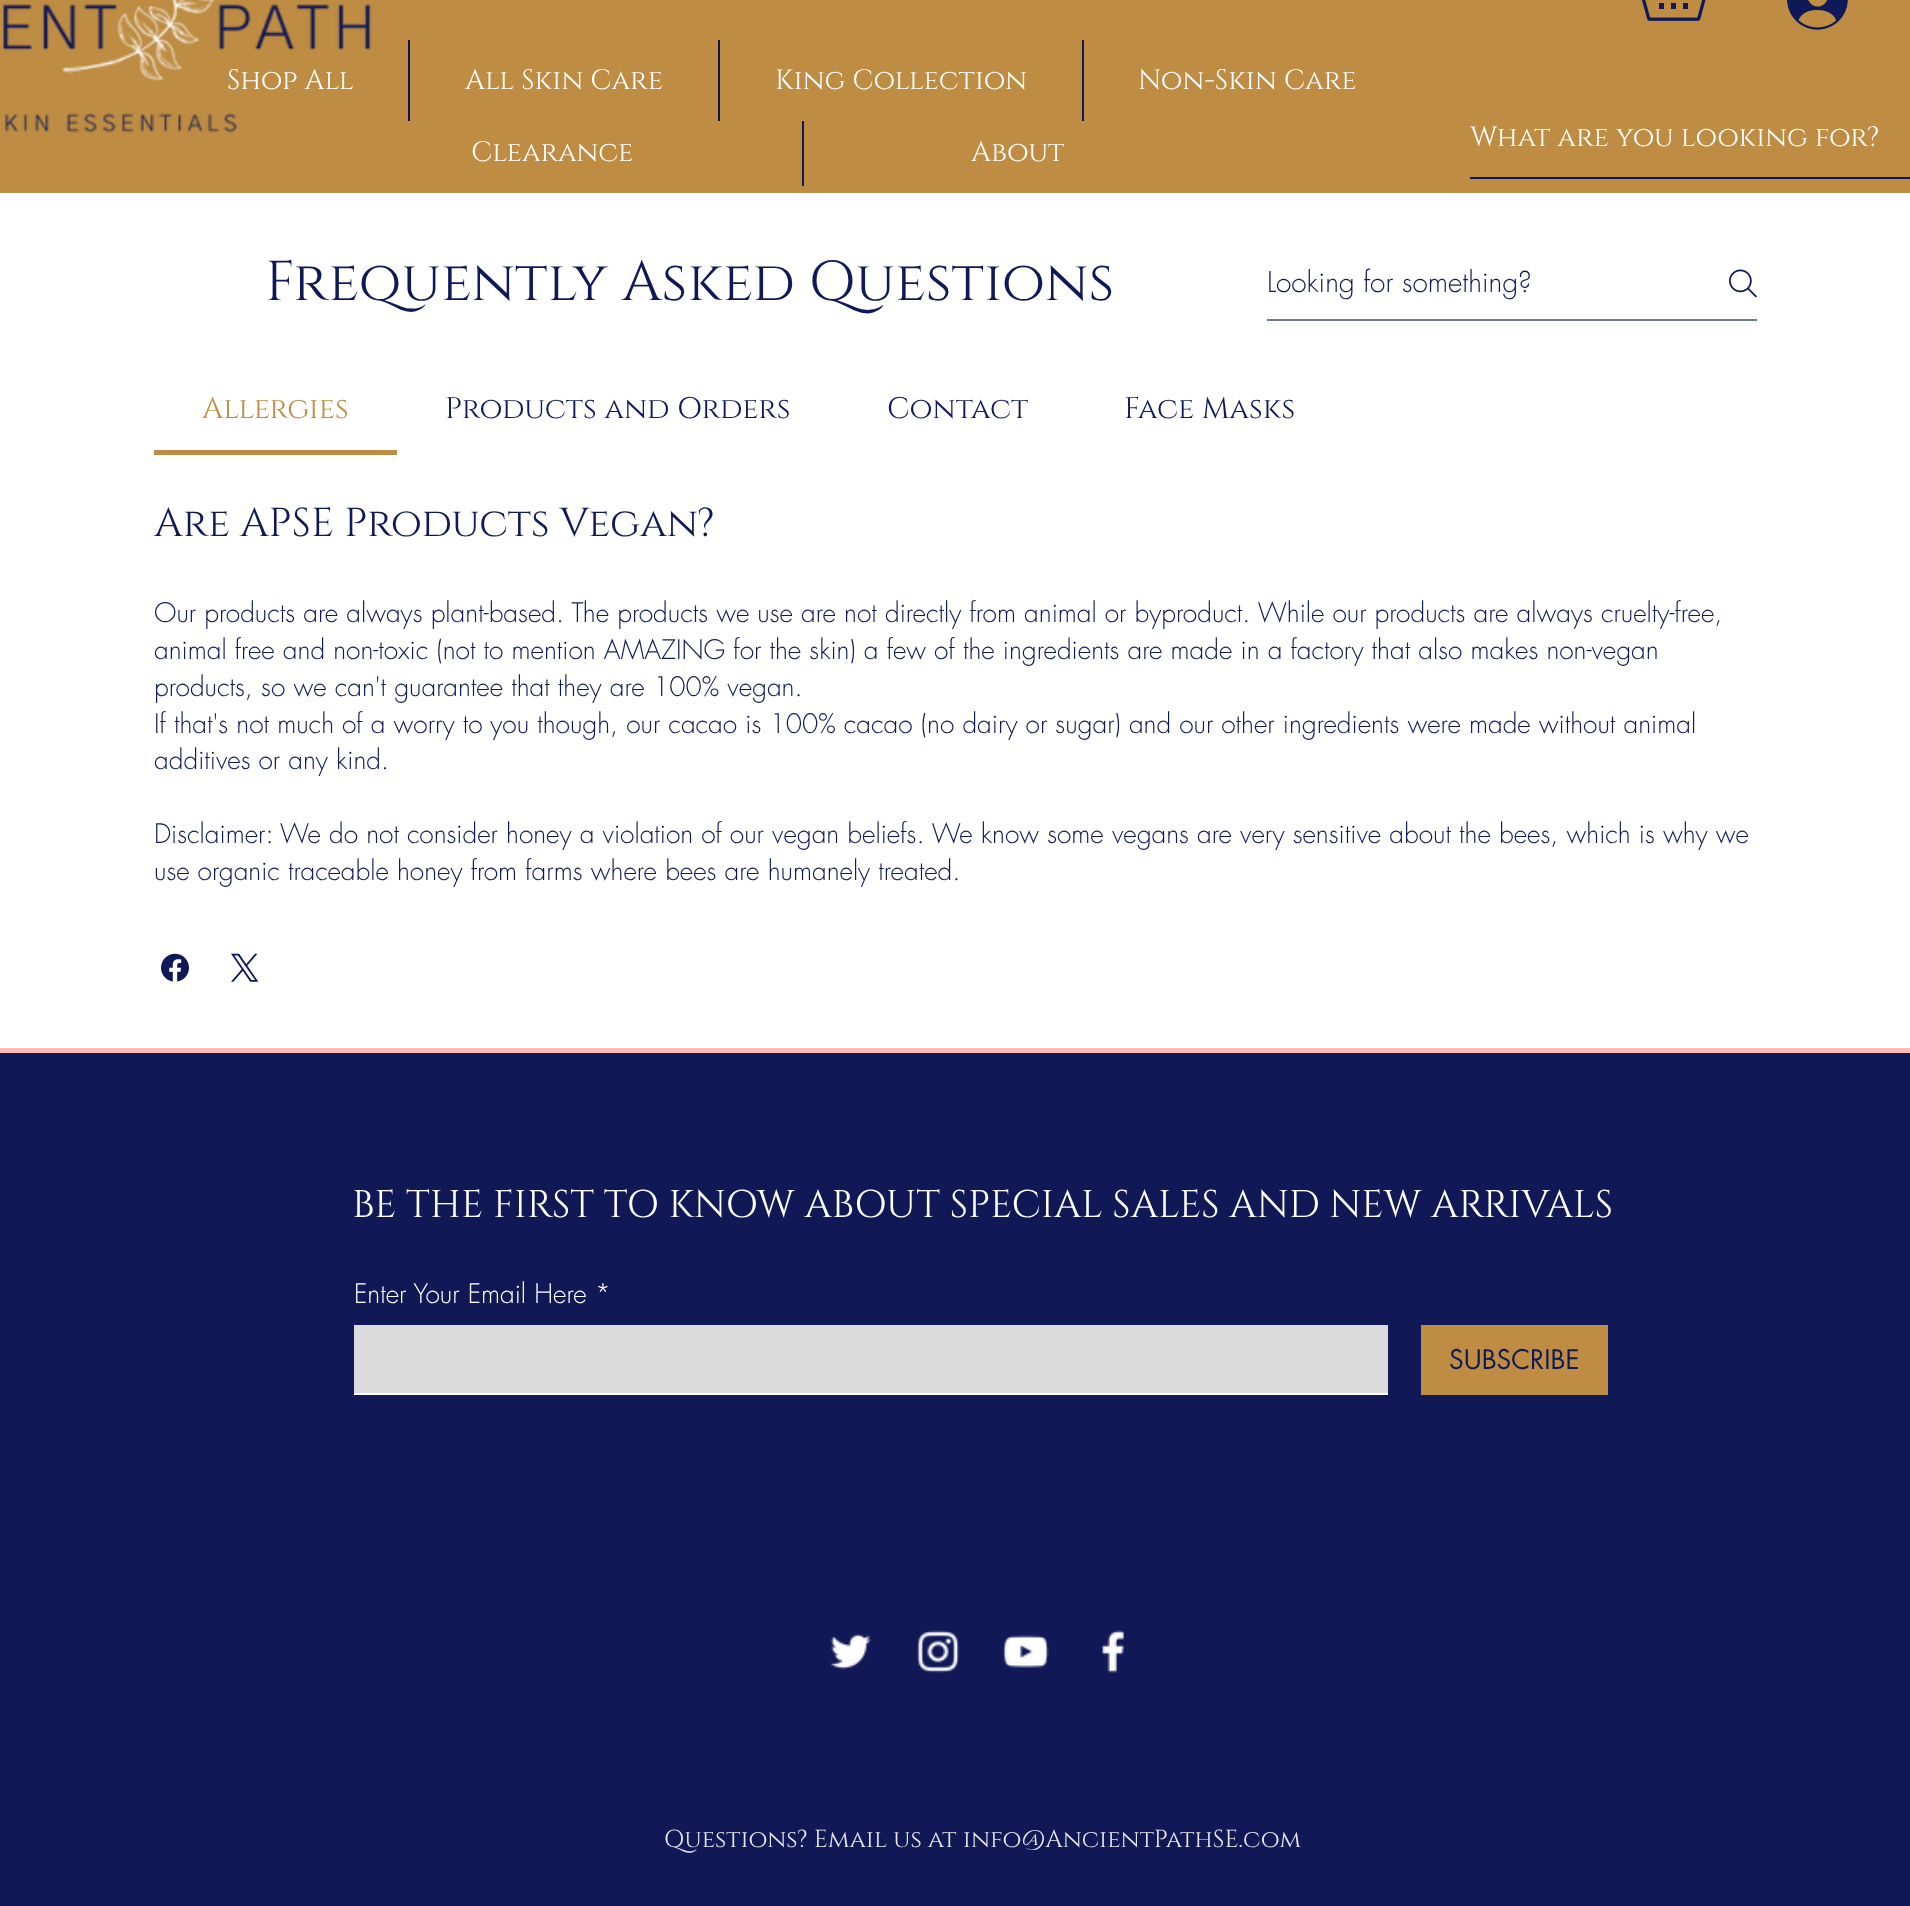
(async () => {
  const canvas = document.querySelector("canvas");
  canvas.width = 1910;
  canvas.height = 1906;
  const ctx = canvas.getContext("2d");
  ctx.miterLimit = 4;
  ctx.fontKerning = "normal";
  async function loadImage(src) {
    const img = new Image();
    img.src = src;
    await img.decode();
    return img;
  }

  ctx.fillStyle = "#ffffff";
  ctx.fillRect(0, 0, 1910, 1906);
  ctx.fillStyle = "#be8d43";
  ctx.fillRect(0, 0, 1910, 193);
  ctx.drawImage(await loadImage("img/1.png"), 1642, 0, 64, 21);
  ctx.drawImage(await loadImage("img/3.png"), 1787, 0, 61, 30);
  for (const [x, y, w, h, color] of [
    [408, 40, 2, 81, "#101957"],
    [718, 40, 2, 81, "#101957"],
    [1082, 40, 2, 81, "#101957"],
    [802, 121, 2, 65, "#101957"],
    [1470, 177, 440, 2, "#101957"],
    [1267, 319, 490, 2, "#70759a"],
  ]) {
    ctx.fillStyle = color;
    ctx.fillRect(x, y, w, h);
  }
  ctx.drawImage(await loadImage("img/4.png"), 1729, 269, 28, 29);
  ctx.fillStyle = "#be8d43";
  ctx.fillRect(154, 450, 243, 5);
  ctx.drawImage(await loadImage("img/5.png"), 161, 953, 28, 29);
  ctx.drawImage(await loadImage("img/6.png"), 231, 953, 28, 29);
  for (const [x, y, w, h, color] of [
    [0, 1053, 1910, 853, "#101956"],
    [0, 1048, 1910, 5, "#fcbcb2"],
    [354, 1325, 1034, 68, "#dbdbdb"],
    [354, 1393, 1034, 2, "#ffffff"],
    [1421, 1325, 187, 70, "#be8d43"],
  ]) {
    ctx.fillStyle = color;
    ctx.fillRect(x, y, w, h);
  }
  ctx.drawImage(await loadImage("img/7.png"), 830, 1633, 42, 37);
  ctx.drawImage(await loadImage("img/8.png"), 916, 1630, 44, 43);
  ctx.drawImage(await loadImage("img/9.png"), 1002, 1635, 47, 33);
  ctx.drawImage(await loadImage("img/10.png"), 1102, 1630, 23, 43);
  ctx.font = "28px Cinzel";
  ctx.fillStyle = "#ffffff";
  ctx.fillText("Shop All", 227, 89);
  ctx.drawImage(await loadImage("img/2.png"), 3, 0, 369, 133);
  for (const [text, x, y] of [
    ["All Skin Care", 465, 89],
    ["King Collection", 775, 89],
    ["Non-Skin Care", 1138, 89],
    ["Clearance", 471, 161],
    ["About", 971, 161],
    ["What are you looking for?", 1470, 146],
  ]) {
    ctx.fillText(text, x, y);
  }
  ctx.font = "56px Cinzel";
  ctx.fillStyle = "#101957";
  ctx.fillText("Frequently Asked Questions", 265, 300);
  ctx.font = "300 28px futura";
  ctx.fillText("Looking for something?", 1267, 292);
  ctx.font = "29.75px Cinzel";
  ctx.fillStyle = "#be8d43";
  ctx.fillText("Allergies", 202, 418);
  ctx.fillStyle = "#101957";
  for (const [text, x, y] of [
    ["Products and Orders", 445, 418],
    ["Contact", 887, 418],
    ["Face Masks", 1124, 418],
  ]) {
    ctx.fillText(text, x, y);
  }
  ctx.font = "40.25px Cinzel";
  ctx.fillText("Are APSE Products Vegan?", 154, 536);
  ctx.font = "300 26.25px futura";
  for (const [text, x, y] of [
    ["Our products are always plant-based. The products we use are not directly from animal or byproduct. While our products are always cruelty-free,", 154, 622],
    ["animal free and non-toxic (not to mention AMAZING for the skin) a few of the ingredients are made in a factory that also makes non-vegan", 154, 659],
    ["products, so we can't guarantee that they are 100% vegan.", 154, 696],
    ["If that's not much of a worry to you though, our cacao is 100% cacao (no dairy or sugar) and our other ingredients were made without animal", 154, 733],
    ["additives or any kind.", 154, 769],
    ["Disclaimer: We do not consider honey a violation of our vegan beliefs. We know some vegans are very sensitive about the bees, which is why we", 154, 843],
    ["use organic traceable honey from farms where bees are humanely treated.", 154, 880],
  ]) {
    ctx.fillText(text, x, y);
  }
  ctx.font = "38.5px Cinzel";
  ctx.fillStyle = "#ffffff";
  ctx.fillText("BE THE FIRST TO KNOW ABOUT SPECIAL SALES AND NEW ARRIVALS", 352, 1217);
  ctx.font = "300 26.25px futura";
  ctx.fillText("Enter Your Email Here *", 354, 1303);
  ctx.font = "26.25px futura";
  ctx.fillStyle = "#101957";
  ctx.fillText("SUBSCRIBE", 1449, 1369);
  ctx.font = "24.5px Cinzel";
  ctx.fillStyle = "#e9e6eb";
  ctx.fillText("Questions? Email us at info@AncientPathSE.com", 664, 1847);
})();
